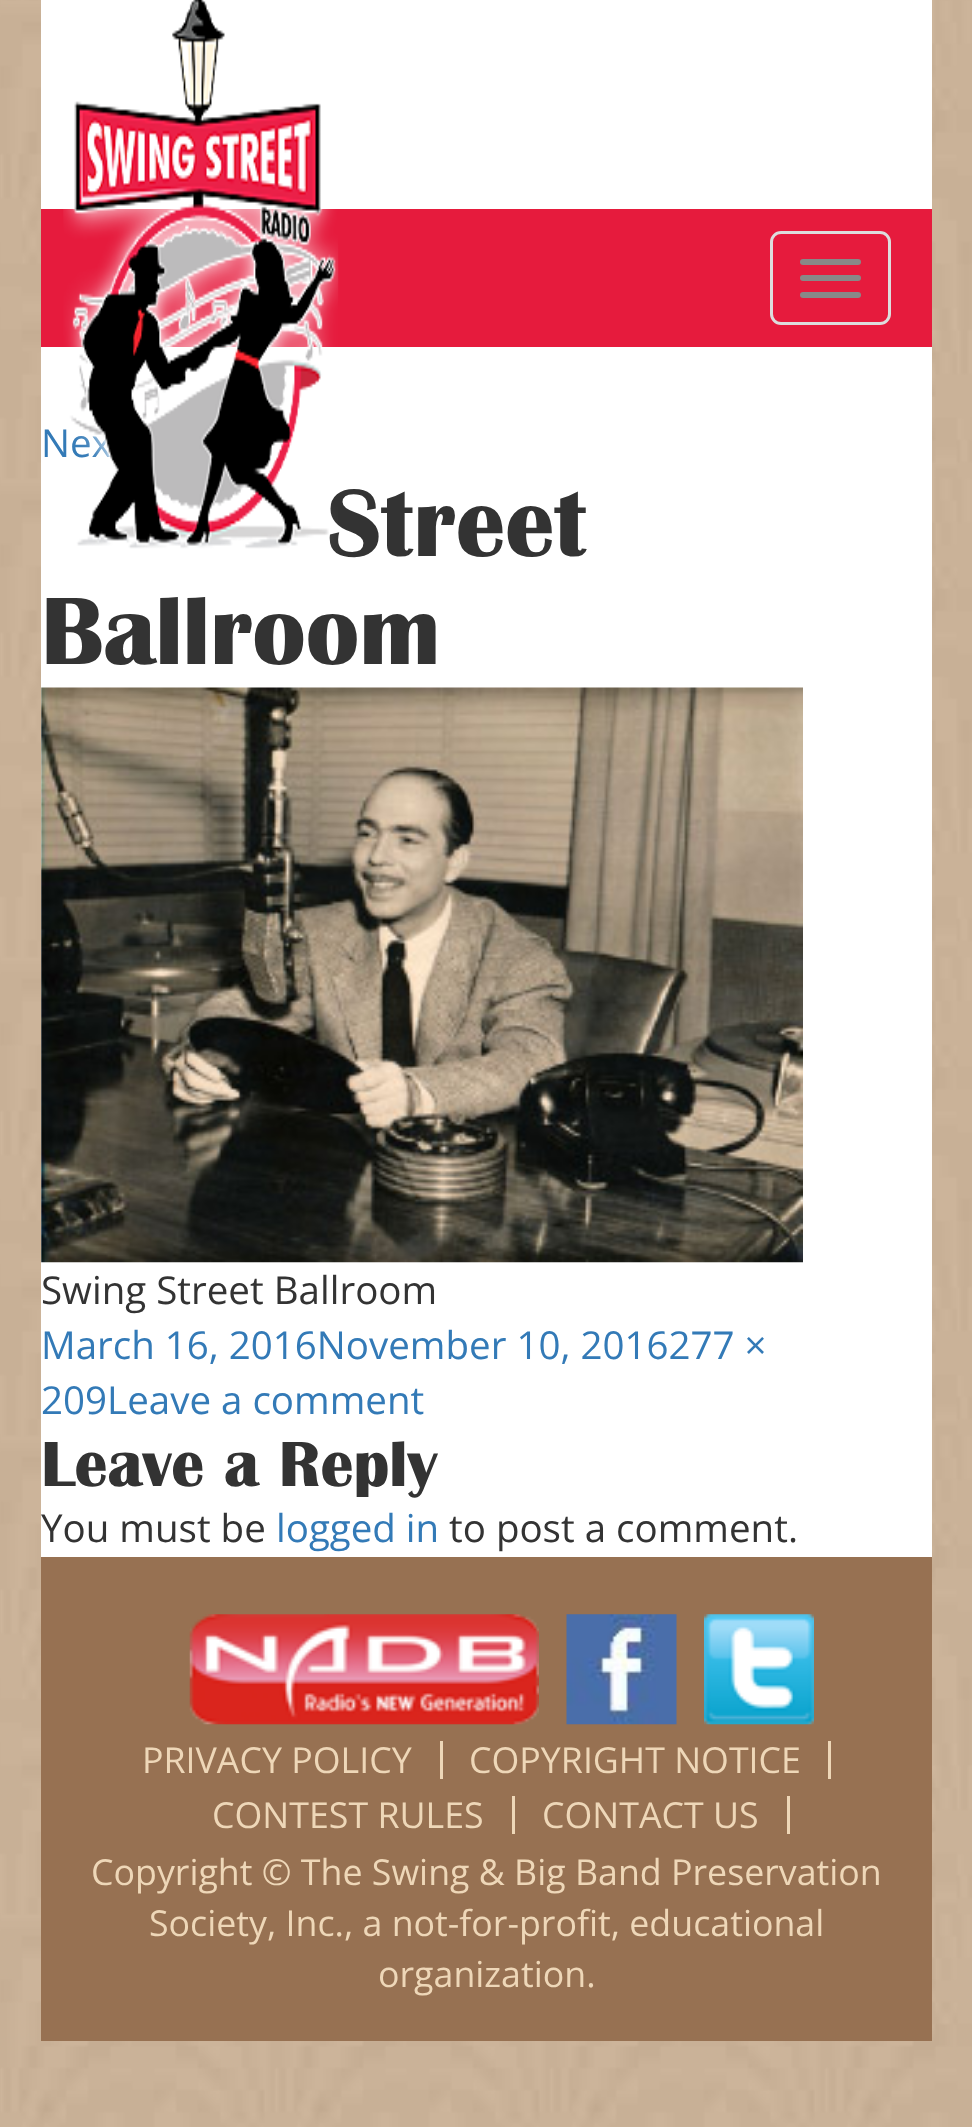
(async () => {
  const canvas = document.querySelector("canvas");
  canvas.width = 972;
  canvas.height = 2127;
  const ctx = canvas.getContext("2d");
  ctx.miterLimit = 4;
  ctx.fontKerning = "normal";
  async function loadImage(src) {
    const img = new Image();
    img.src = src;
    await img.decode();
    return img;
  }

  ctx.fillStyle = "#ffffff";
  ctx.fillRect(0, 0, 972, 2127);
  ctx.drawImage(await loadImage("img/1.png"), 0, 0, 972, 2127);
  ctx.fillRect(41, 0, 891, 1557);
  ctx.fillStyle = "#e61b3d";
  ctx.fillRect(41, 209, 891, 138);
  ctx.beginPath();
  ctx.roundRect(771.5, 232.5, 118, 91, 9.5);
  ctx.strokeStyle = "#dddddd";
  ctx.lineWidth = 3;
  ctx.stroke();
  ctx.fillStyle = "#888888";
  ctx.beginPath();
  ctx.roundRect(800, 259, 61, 6, 3);
  ctx.fill();
  ctx.beginPath();
  ctx.roundRect(800, 275, 61, 6, 3);
  ctx.fill();
  ctx.beginPath();
  ctx.roundRect(800, 292, 61, 6, 3);
  ctx.fill();
  ctx.drawImage(await loadImage("img/3.png"), 41, 687, 762, 576);
  ctx.fillStyle = "#977152";
  ctx.fillRect(41, 1557, 891, 484);
  ctx.drawImage(await loadImage("img/4.png"), 189, 1614, 350, 111);
  ctx.drawImage(await loadImage("img/5.png"), 566, 1614, 111, 111);
  ctx.drawImage(await loadImage("img/6.png"), 704, 1614, 110, 111);
  for (const [x, y, w, h, color] of [
    [440, 1741, 3, 38, "#eed7b8"],
    [828, 1741, 3, 38, "#eed7b8"],
    [512, 1796, 3, 38, "#eed7b8"],
    [787, 1796, 3, 38, "#eed7b8"],
  ]) {
    ctx.fillStyle = color;
    ctx.fillRect(x, y, w, h);
  }
  ctx.font = "38.5px Open Sans";
  ctx.fillStyle = "#337ab7";
  ctx.fillText("Nex", 41, 457);
  ctx.font = "bold 99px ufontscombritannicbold";
  ctx.fillStyle = "#333333";
  ctx.fillText("Street", 327, 556);
  ctx.drawImage(await loadImage("img/2.png"), 63, 0, 276, 553);
  ctx.fillText("Ballroom", 41, 664);
  ctx.font = "38.5px Open Sans";
  ctx.fillText("Swing Street Ballroom", 41, 1304);
  ctx.fillStyle = "#337ab7";
  ctx.fillText("March 16, 2016November 10, 2016277 ×", 41, 1359);
  ctx.fillText("209Leave a comment", 41, 1414);
  ctx.font = "bold 66px ufontscombritannicbold";
  ctx.fillStyle = "#333333";
  ctx.fillText("Leave a Reply", 41, 1486);
  ctx.font = "38.5px Open Sans";
  ctx.fillText("You must be", 41, 1542);
  ctx.fillStyle = "#337ab7";
  ctx.fillText("logged in", 276, 1542);
  ctx.fillStyle = "#333333";
  ctx.fillText("to post a comment.", 449, 1542);
  ctx.font = "35.75px Open Sans";
  ctx.fillStyle = "#eed7b8";
  for (const [text, x, y] of [
    ["PRIVACY POLICY", 142, 1773],
    ["COPYRIGHT NOTICE", 469, 1773],
    ["CONTEST RULES", 212, 1828],
    ["CONTACT US", 542, 1828],
    ["Copyright © The Swing & Big Band Preservation", 91, 1885],
    ["Society, Inc., a not-for-profit, educational", 149, 1936],
    ["organization.", 378, 1987],
  ]) {
    ctx.fillText(text, x, y);
  }
})();
